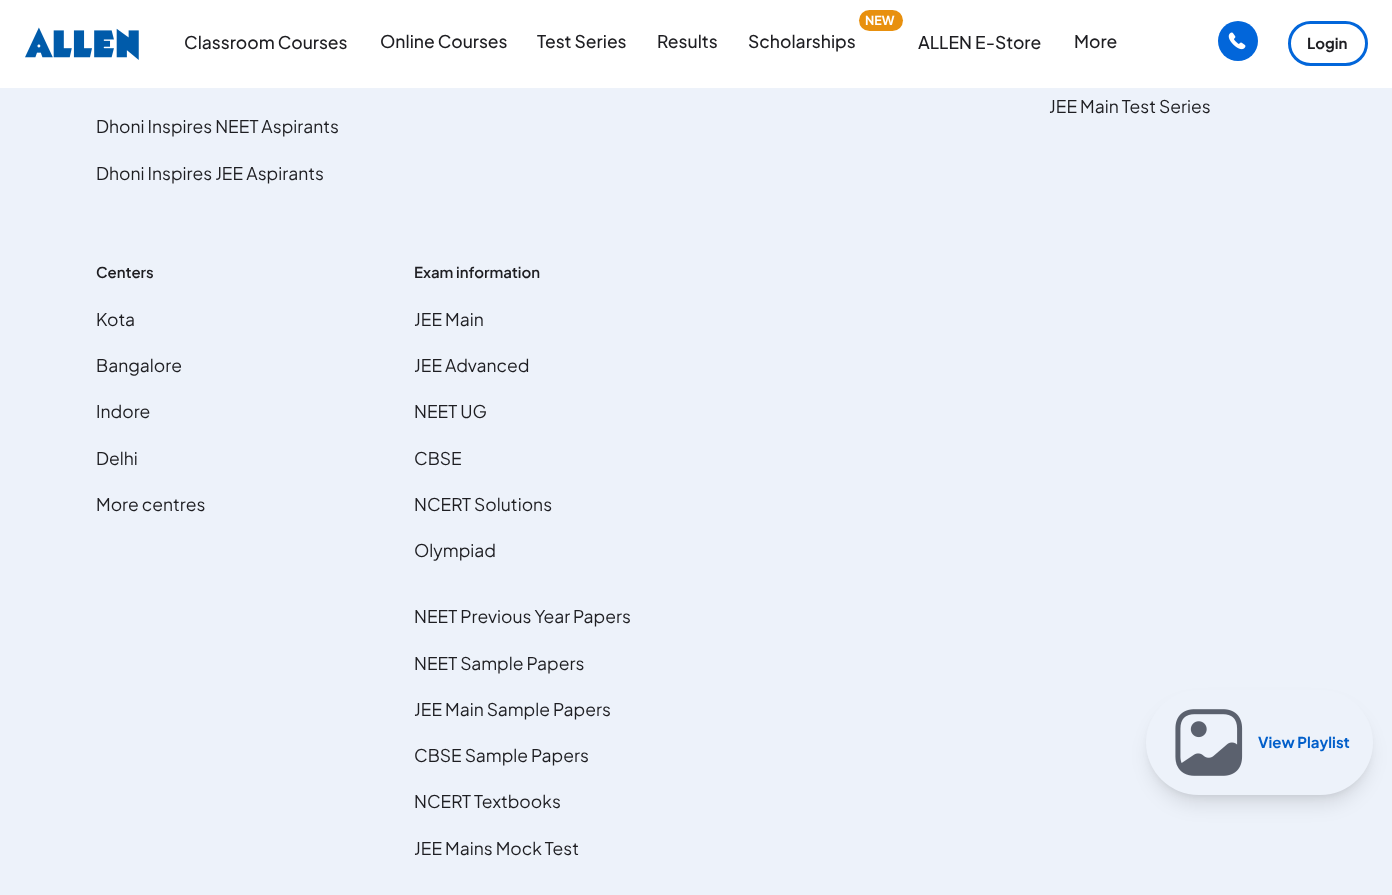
(async () => {
  const canvas = document.querySelector("canvas");
  canvas.width = 1392;
  canvas.height = 895;
  const ctx = canvas.getContext("2d");
  ctx.miterLimit = 4;
  ctx.fontKerning = "normal";
  async function loadImage(src) {
    const img = new Image();
    img.src = src;
    await img.decode();
    return img;
  }

  ctx.fillStyle = "#edf2fa";
  ctx.fillRect(0, 0, 1392, 895);
  ctx.fillStyle = "#ffffff";
  ctx.fillRect(0, 0, 1392, 88);
  ctx.drawImage(await loadImage("img/1.png"), 25, 27, 114, 33);
  ctx.fillStyle = "#e8900e";
  ctx.beginPath();
  ctx.roundRect(859, 10, 44, 21, 10.5);
  ctx.fill();
  ctx.fillStyle = "#0266da";
  ctx.beginPath();
  ctx.arc(1238, 41, 20, 0, Math.PI * 2);
  ctx.fill();
  ctx.drawImage(await loadImage("img/2.png"), 1228, 32, 18, 18);
  ctx.beginPath();
  ctx.roundRect(1289.5, 22.5, 77, 42, 21);
  ctx.strokeStyle = "#0266da";
  ctx.lineWidth = 3;
  ctx.stroke();
  ctx.fillStyle = "rgba(0, 0, 0, 0.1)";
  ctx.filter = "blur(4px)";
  ctx.beginPath();
  ctx.roundRect(1151, 700, 217, 95, 47.5);
  ctx.fill();
  ctx.filter = "none";
  ctx.filter = "blur(9.5px)";
  ctx.beginPath();
  ctx.roundRect(1150, 706, 219, 98, 49);
  ctx.fill();
  ctx.filter = "none";
  ctx.fillStyle = "#edf2fa";
  ctx.beginPath();
  ctx.roundRect(1146, 690, 227, 105, 52.5);
  ctx.fill();
  ctx.drawImage(await loadImage("img/3.png"), 1175, 709, 68, 67);
  ctx.font = "500 17.5px Plus Jakarta Sans";
  ctx.fillStyle = "#1e1e22";
  for (const [text, x, y] of [
    ["Classroom Courses", 184, 49],
    ["Online Courses", 380, 48],
    ["Test Series", 537, 48],
    ["Results", 657, 48],
  ]) {
    ctx.fillText(text, x, y);
  }
  ctx.font = "bold 12.5px Plus Jakarta Sans";
  ctx.fillStyle = "#ffffff";
  ctx.fillText("NEW", 865, 25);
  ctx.font = "500 17.5px Plus Jakarta Sans";
  ctx.fillStyle = "#1e1e22";
  for (const [text, x, y] of [
    ["Scholarships", 748, 48],
    ["ALLEN E-Store", 918, 49],
    ["More", 1074, 48],
  ]) {
    ctx.fillText(text, x, y);
  }
  ctx.font = "bold 15px Plus Jakarta Sans";
  ctx.fillText("Login", 1307, 49);
  ctx.font = "17.5px Plus Jakarta Sans";
  for (const [text, x, y] of [
    ["JEE Main Test Series", 1049, 113],
    ["Dhoni Inspires NEET Aspirants", 96, 133],
    ["Dhoni Inspires JEE Aspirants", 96, 180],
  ]) {
    ctx.fillText(text, x, y);
  }
  ctx.font = "600 15px Plus Jakarta Sans";
  ctx.fillText("Centers", 96, 278);
  ctx.font = "17.5px Plus Jakarta Sans";
  for (const [text, x, y] of [
    ["Kota", 96, 326],
    ["Bangalore", 96, 372],
    ["Indore", 96, 418],
    ["Delhi", 96, 465],
    ["More centres", 96, 511],
  ]) {
    ctx.fillText(text, x, y);
  }
  ctx.font = "600 15px Plus Jakarta Sans";
  ctx.fillText("Exam information", 414, 278);
  ctx.font = "17.5px Plus Jakarta Sans";
  for (const [text, x, y] of [
    ["JEE Main", 414, 326],
    ["JEE Advanced", 414, 372],
    ["NEET UG", 414, 418],
    ["CBSE", 414, 465],
    ["NCERT Solutions", 414, 511],
    ["Olympiad", 414, 557],
    ["NEET Previous Year Papers", 414, 623],
    ["NEET Sample Papers", 414, 670],
    ["JEE Main Sample Papers", 414, 716],
    ["CBSE Sample Papers", 414, 762],
    ["NCERT Textbooks", 414, 808],
    ["JEE Mains Mock Test", 414, 855],
  ]) {
    ctx.fillText(text, x, y);
  }
  ctx.font = "bold 15px Plus Jakarta Sans";
  ctx.fillStyle = "#025fca";
  ctx.fillText("View Playlist", 1258, 748);
})();
